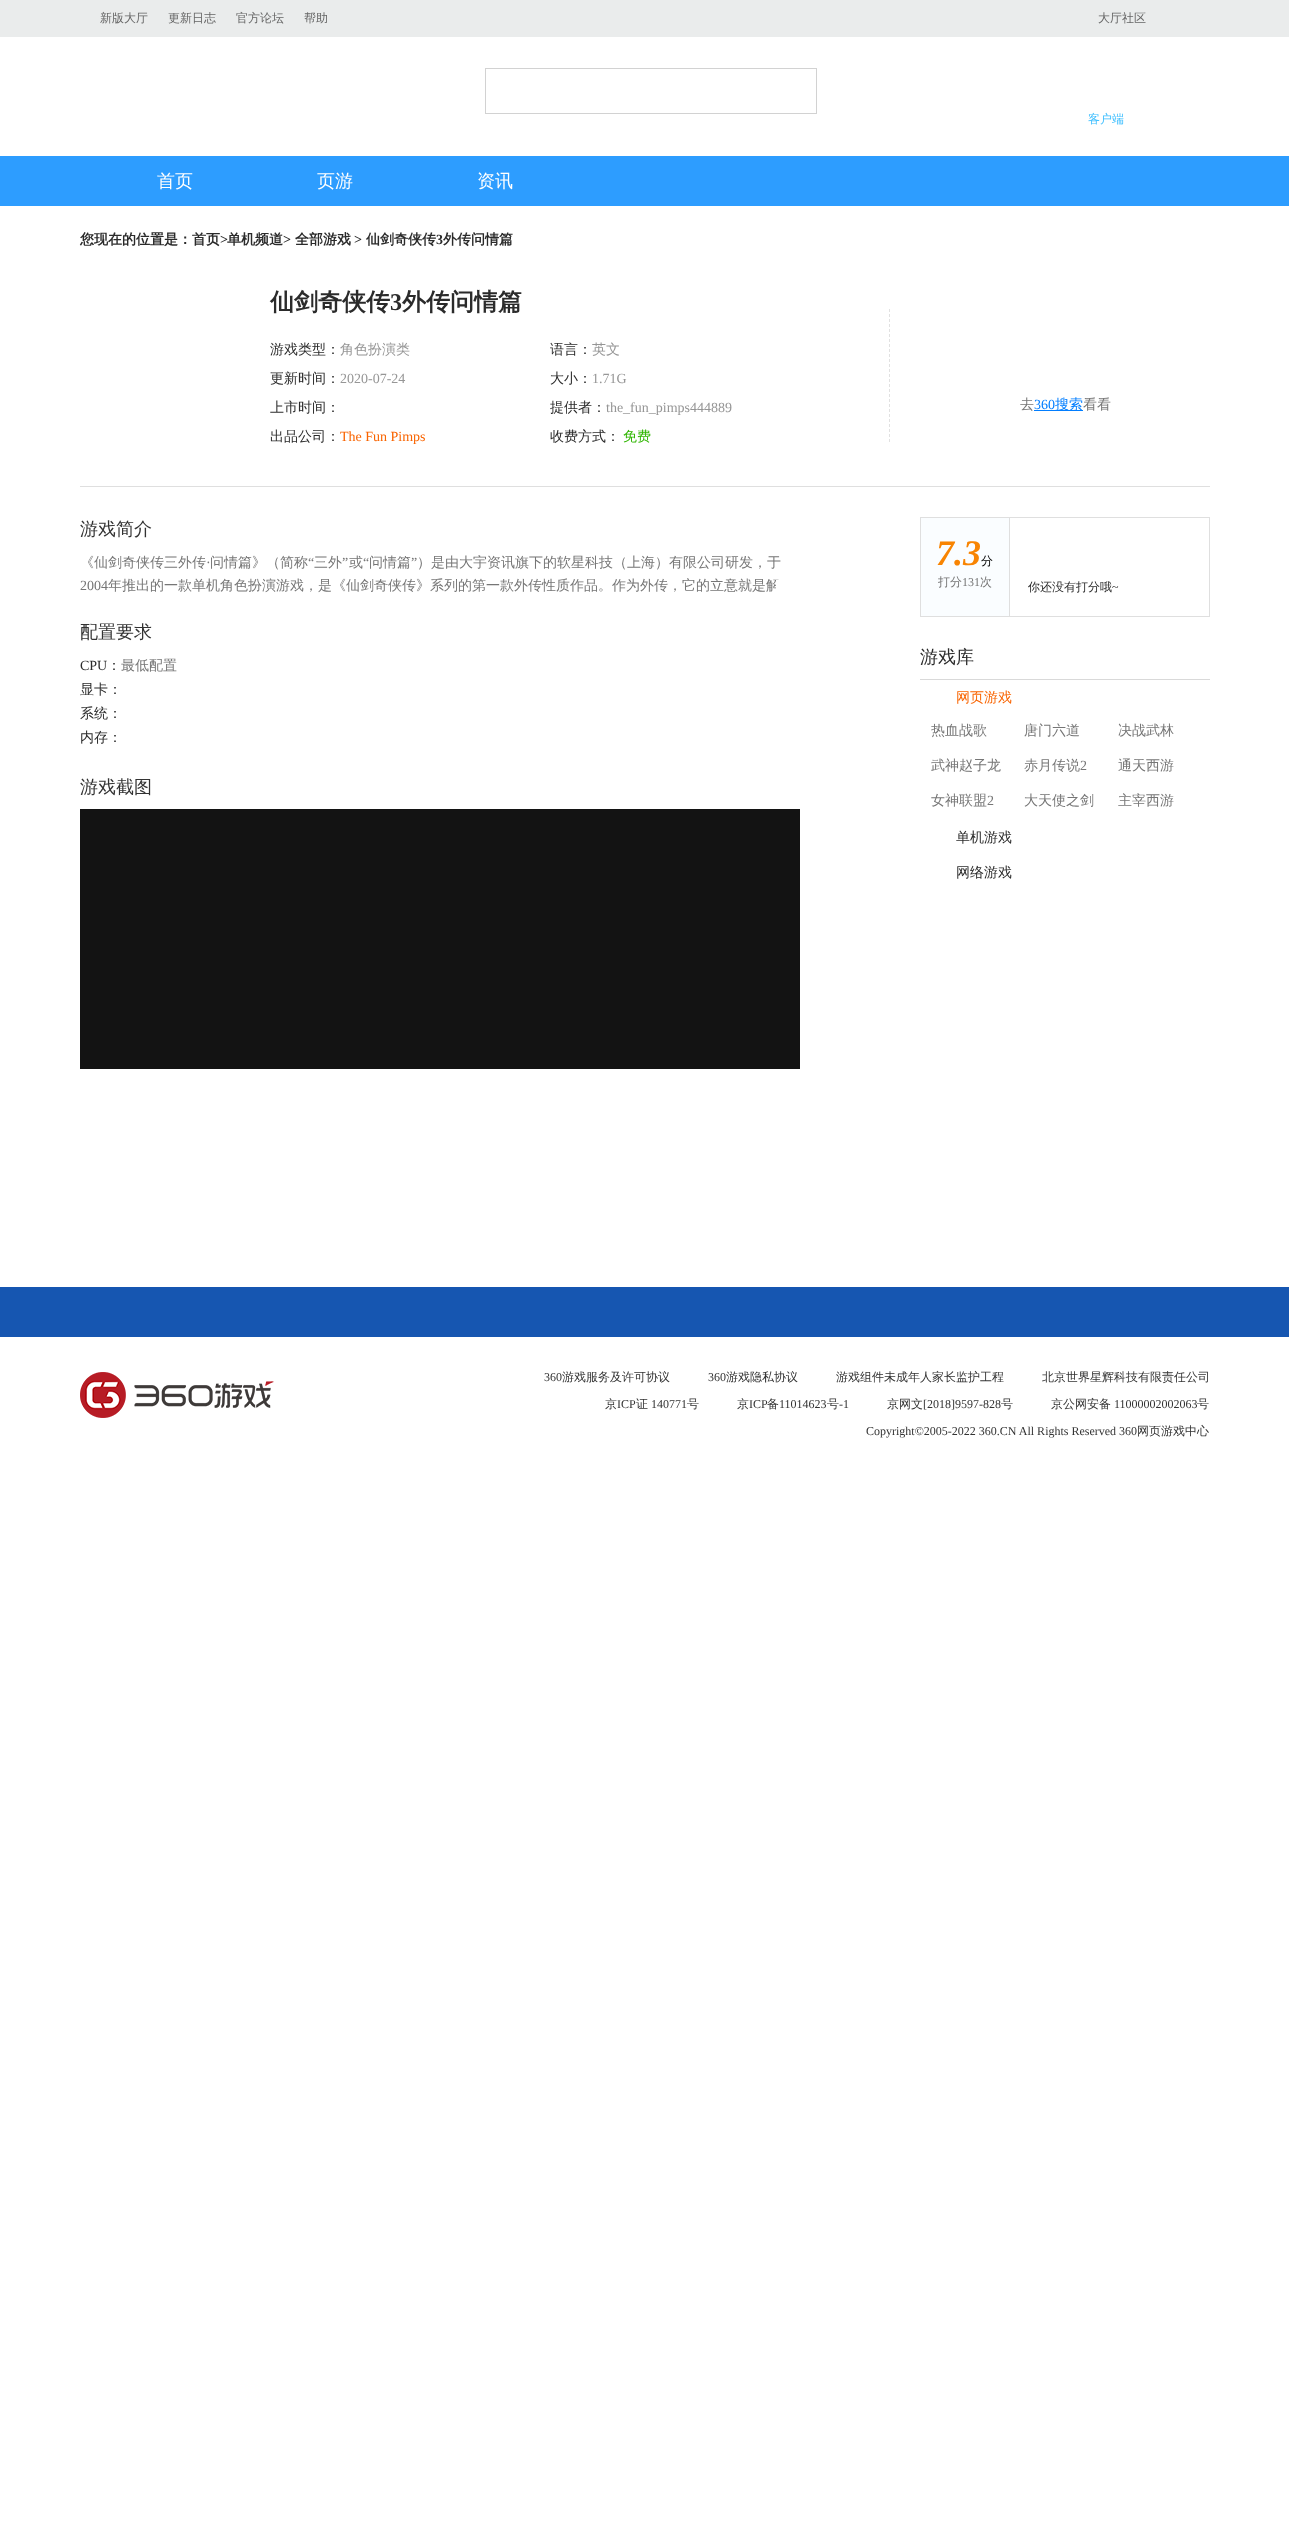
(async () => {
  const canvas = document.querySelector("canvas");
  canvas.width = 1289;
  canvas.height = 2548;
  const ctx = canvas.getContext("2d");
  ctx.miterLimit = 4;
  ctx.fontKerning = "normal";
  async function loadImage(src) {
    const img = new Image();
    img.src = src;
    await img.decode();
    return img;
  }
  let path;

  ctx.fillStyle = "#ffffff";
  ctx.fillRect(0, 0, 1289, 2548);
  ctx.fillStyle = "#eaecec";
  ctx.fillRect(0, 0, 1289, 37);
  ctx.strokeStyle = "#d2d2d2";
  ctx.strokeRect(485.5, 68.5, 331, 45);
  ctx.fillStyle = "#2d9dff";
  ctx.fillRect(0, 156, 1289, 50);
  ctx.fillStyle = "#dfdfdf";
  ctx.fillRect(80, 486, 1130, 1);
  path = new Path2D("M889.5 309V442");
  ctx.strokeStyle = "#e1e1e1";
  ctx.setLineDash([3, 2]);
  ctx.stroke(path);
  for (const [x, y, w, h, color] of [
    [1034, 410, 49, 1, "#027eff"],
    [80, 809, 720, 260, "#131313"],
    [921, 518, 88, 98, "#fafdff"],
  ]) {
    ctx.fillStyle = color;
    ctx.fillRect(x, y, w, h);
  }
  ctx.strokeStyle = "#dfdfdf";
  ctx.setLineDash([]);
  ctx.strokeRect(920.5, 517.5, 289, 99);
  for (const [x, y, w, h, color] of [
    [1009, 518, 1, 98, "#dfdfdf"],
    [920, 679, 290, 1, "#d9d9d9"],
    [0, 1287, 1289, 50, "#1656b1"],
  ]) {
    ctx.fillStyle = color;
    ctx.fillRect(x, y, w, h);
  }
  ctx.drawImage(await loadImage("img/1.png"), 80, 1372, 194, 46);
  ctx.font = "500 12px WenQuanYi Zen Hei";
  ctx.fillStyle = "#666666";
  for (const [text, x, y] of [
    ["新版大厅", 100, 22],
    ["更新日志", 168, 22],
    ["官方论坛", 236, 22],
    ["帮助", 304, 22],
    ["大厅社区", 1098, 22],
  ]) {
    ctx.fillText(text, x, y);
  }
  ctx.fillStyle = "#3cbeff";
  ctx.fillText("客户端", 1088, 123);
  ctx.font = "500 18px WenQuanYi Zen Hei";
  ctx.fillStyle = "#ffffff";
  for (const [text, x, y] of [
    ["首页", 157, 187],
    ["页游", 317, 187],
    ["资讯", 477, 187],
  ]) {
    ctx.fillText(text, x, y);
  }
  ctx.font = "bold 14px WenQuanYi Zen Hei";
  ctx.fillStyle = "#2b2b2b";
  ctx.fillText("您现在的位置是：首页", 80, 244);
  ctx.font = "bold 14px Liberation Serif";
  ctx.fillText(">", 220, 244);
  ctx.font = "bold 14px WenQuanYi Zen Hei";
  ctx.fillText("单机频道", 227, 244);
  ctx.font = "bold 14px Liberation Serif";
  ctx.fillText(">", 283, 244);
  ctx.font = "bold 14px WenQuanYi Zen Hei";
  ctx.fillText("全部游戏", 295, 244);
  ctx.font = "bold 14px Liberation Serif";
  ctx.fillText(">", 354, 244);
  ctx.font = "bold 14px WenQuanYi Zen Hei";
  ctx.fillText("仙剑奇侠传", 366, 244);
  ctx.font = "bold 14px Liberation Serif";
  ctx.fillText("3", 436, 244);
  ctx.font = "bold 14px WenQuanYi Zen Hei";
  ctx.fillText("外传问情篇", 443, 244);
  ctx.font = "bold 24px WenQuanYi Zen Hei";
  ctx.fillText("仙剑奇侠传", 270, 310);
  ctx.font = "bold 24px Liberation Serif";
  ctx.fillText("3", 390, 310);
  ctx.font = "bold 24px WenQuanYi Zen Hei";
  ctx.fillText("外传问情篇", 402, 310);
  ctx.font = "500 14px WenQuanYi Zen Hei";
  ctx.fillText("游戏类型：", 270, 354);
  ctx.fillStyle = "#969696";
  ctx.fillText("角色扮演类", 340, 354);
  ctx.fillStyle = "#2b2b2b";
  ctx.fillText("语言：", 550, 354);
  ctx.fillStyle = "#969696";
  ctx.fillText("英文", 592, 354);
  ctx.fillStyle = "#2b2b2b";
  ctx.fillText("更新时间：", 270, 383);
  ctx.font = "14px Liberation Serif";
  ctx.fillStyle = "#969696";
  ctx.fillText("2020-07-24", 340, 383);
  ctx.font = "500 14px WenQuanYi Zen Hei";
  ctx.fillStyle = "#2b2b2b";
  ctx.fillText("大小：", 550, 383);
  ctx.font = "14px Liberation Serif";
  ctx.fillStyle = "#969696";
  ctx.fillText("1.71G", 592, 383);
  ctx.font = "500 14px WenQuanYi Zen Hei";
  ctx.fillStyle = "#2b2b2b";
  ctx.fillText("上市时间：", 270, 412);
  ctx.fillText("提供者：", 550, 412);
  ctx.font = "14px Liberation Serif";
  ctx.fillStyle = "#969696";
  ctx.fillText("the_fun_pimps444889", 606, 412);
  ctx.font = "500 14px WenQuanYi Zen Hei";
  ctx.fillStyle = "#2b2b2b";
  ctx.fillText("出品公司：", 270, 441);
  ctx.font = "14px Liberation Serif";
  ctx.fillStyle = "#f96400";
  ctx.fillText("The Fun Pimps", 340, 441);
  ctx.font = "500 14px WenQuanYi Zen Hei";
  ctx.fillStyle = "#2b2b2b";
  ctx.fillText("收费方式：", 550, 441);
  ctx.fillStyle = "#2fb500";
  ctx.fillText("免费", 623, 441);
  ctx.fillStyle = "#767676";
  ctx.fillText("去", 1020, 409);
  ctx.font = "14px Liberation Serif";
  ctx.fillStyle = "#027eff";
  ctx.fillText("360", 1034, 409);
  ctx.font = "500 14px WenQuanYi Zen Hei";
  ctx.fillText("搜索", 1055, 409);
  ctx.fillStyle = "#767676";
  ctx.fillText("看看", 1083, 409);
  ctx.font = "500 18px WenQuanYi Zen Hei";
  ctx.fillStyle = "#333333";
  ctx.fillText("游戏简介", 80, 535);
  ctx.font = "500 14px WenQuanYi Zen Hei";
  ctx.fillStyle = "#767676";
  ctx.fillText("《仙剑奇侠传三外传", 80, 567);
  ctx.fillText("问情篇》（简称", 210, 567);
  ctx.font = "14px Liberation Serif";
  ctx.fillText("“", 308, 567);
  ctx.font = "500 14px WenQuanYi Zen Hei";
  ctx.fillText("三外", 314, 567);
  ctx.font = "14px Liberation Serif";
  ctx.fillText("”", 342, 567);
  ctx.font = "500 14px WenQuanYi Zen Hei";
  ctx.fillText("或", 349, 567);
  ctx.font = "14px Liberation Serif";
  ctx.fillText("“", 363, 567);
  ctx.font = "500 14px WenQuanYi Zen Hei";
  ctx.fillText("问情篇", 369, 567);
  ctx.font = "14px Liberation Serif";
  ctx.fillText("”", 411, 567);
  ctx.font = "500 14px WenQuanYi Zen Hei";
  ctx.fillText("）是由大宇资讯旗下的软星科技（上海）有限公司研发，于", 417, 567);
  ctx.font = "14px Liberation Serif";
  ctx.fillText("·", 206, 567);
  ctx.fillText("2004", 80, 590);
  ctx.font = "500 14px WenQuanYi Zen Hei";
  ctx.fillText("年推出的一款单机角色扮演游戏，是《仙剑奇侠传》系列的第一款外传性质作品。作为外传，它的立意就是解", 108, 590);
  ctx.fillStyle = "#ffffff";
  ctx.fillRect(776, 580, 4, 12);
  ctx.font = "500 18px WenQuanYi Zen Hei";
  ctx.fillStyle = "#333333";
  ctx.fillText("配置要求", 80, 638);
  ctx.font = "14px Liberation Serif";
  ctx.fillStyle = "#2b2b2b";
  ctx.fillText("CPU", 80, 670);
  ctx.font = "500 14px WenQuanYi Zen Hei";
  ctx.fillText("：", 107, 670);
  ctx.fillStyle = "#767676";
  ctx.fillText("最低配置", 121, 670);
  ctx.fillStyle = "#2b2b2b";
  for (const [text, x, y] of [
    ["显卡：", 80, 694],
    ["系统：", 80, 718],
    ["内存：", 80, 742],
  ]) {
    ctx.fillText(text, x, y);
  }
  ctx.font = "500 18px WenQuanYi Zen Hei";
  ctx.fillStyle = "#333333";
  ctx.fillText("游戏截图", 80, 793);
  ctx.font = "italic bold 36px Liberation Serif";
  ctx.fillStyle = "#f88402";
  ctx.fillText("7.3", 936, 565);
  ctx.font = "500 12px WenQuanYi Zen Hei";
  ctx.fillStyle = "#010101";
  ctx.fillText("分", 981, 565);
  ctx.fillStyle = "#767676";
  ctx.fillText("打分", 938, 586);
  ctx.font = "12px Liberation Serif";
  ctx.fillText("131", 962, 586);
  ctx.font = "500 12px WenQuanYi Zen Hei";
  ctx.fillText("次", 980, 586);
  ctx.fillStyle = "#2b2b2b";
  ctx.fillText("你还没有打分哦", 1028, 591);
  ctx.font = "12px Liberation Serif";
  ctx.fillText("~", 1112, 591);
  ctx.font = "500 18px WenQuanYi Zen Hei";
  ctx.fillText("游戏库", 920, 663);
  ctx.font = "500 14px WenQuanYi Zen Hei";
  ctx.fillStyle = "#f96400";
  ctx.fillText("网页游戏", 956, 702);
  ctx.fillStyle = "#767676";
  for (const [text, x, y] of [
    ["热血战歌", 931, 735],
    ["唐门六道", 1024, 735],
    ["决战武林", 1118, 735],
  ]) {
    ctx.fillText(text, x, y);
  }
  ctx.save();
  ctx.beginPath();
  ctx.rect(931, 750, 90, 31);
  ctx.clip();
  ctx.fillText("武神赵子龙", 931, 770);
  ctx.restore();
  ctx.fillText("赤月传说", 1024, 770);
  ctx.font = "14px Liberation Serif";
  ctx.fillText("2", 1080, 770);
  ctx.font = "500 14px WenQuanYi Zen Hei";
  ctx.fillText("通天西游", 1118, 770);
  ctx.fillText("女神联盟", 931, 805);
  ctx.font = "14px Liberation Serif";
  ctx.fillText("2", 987, 805);
  ctx.font = "500 14px WenQuanYi Zen Hei";
  ctx.fillText("大天使之剑", 1024, 805);
  ctx.fillText("主宰西游", 1118, 805);
  ctx.fillStyle = "#2b2b2b";
  ctx.fillText("单机游戏", 956, 842);
  ctx.fillText("网络游戏", 956, 877);
  ctx.font = "12px Liberation Serif";
  ctx.fillStyle = "#333333";
  ctx.fillText("360", 544, 1381);
  ctx.font = "500 12px WenQuanYi Zen Hei";
  ctx.fillText("游戏服务及许可协议", 562, 1381);
  ctx.font = "12px Liberation Serif";
  ctx.fillText("360", 708, 1381);
  ctx.font = "500 12px WenQuanYi Zen Hei";
  for (const [text, x, y] of [
    ["游戏隐私协议", 726, 1381],
    ["游戏组件未成年人家长监护工程", 836, 1381],
    ["北京世界星辉科技有限责任公司", 1042, 1381],
    ["京", 605, 1408],
  ]) {
    ctx.fillText(text, x, y);
  }
  ctx.font = "12px Liberation Serif";
  ctx.fillText("ICP", 617, 1408);
  ctx.font = "500 12px WenQuanYi Zen Hei";
  ctx.fillText("证", 636, 1408);
  ctx.font = "12px Liberation Serif";
  ctx.fillText("140771", 651, 1408);
  ctx.font = "500 12px WenQuanYi Zen Hei";
  ctx.fillText("号", 687, 1408);
  ctx.fillText("京", 737, 1408);
  ctx.font = "12px Liberation Serif";
  ctx.fillText("ICP", 749, 1408);
  ctx.font = "500 12px WenQuanYi Zen Hei";
  ctx.fillText("备", 767, 1408);
  ctx.font = "12px Liberation Serif";
  ctx.fillText("11014623", 779, 1408);
  ctx.font = "500 12px WenQuanYi Zen Hei";
  ctx.fillText("号", 827, 1408);
  ctx.font = "12px Liberation Serif";
  ctx.fillText("-1", 839, 1408);
  ctx.font = "500 12px WenQuanYi Zen Hei";
  ctx.fillText("京网文", 887, 1408);
  ctx.font = "12px Liberation Serif";
  ctx.fillText("[2018]9597-828", 923, 1408);
  ctx.font = "500 12px WenQuanYi Zen Hei";
  ctx.fillText("号", 1001, 1408);
  ctx.fillText("京公网安备", 1051, 1408);
  ctx.font = "12px Liberation Serif";
  ctx.fillText("11000002002063", 1114, 1408);
  ctx.font = "500 12px WenQuanYi Zen Hei";
  ctx.fillText("号", 1197, 1408);
  ctx.font = "12px Liberation Serif";
  ctx.fillText("Copyright©2005-2022 360.CN All Rights Reserved 360", 866, 1435);
  ctx.font = "500 12px WenQuanYi Zen Hei";
  ctx.fillText("网页游戏中心", 1137, 1435);
})();
